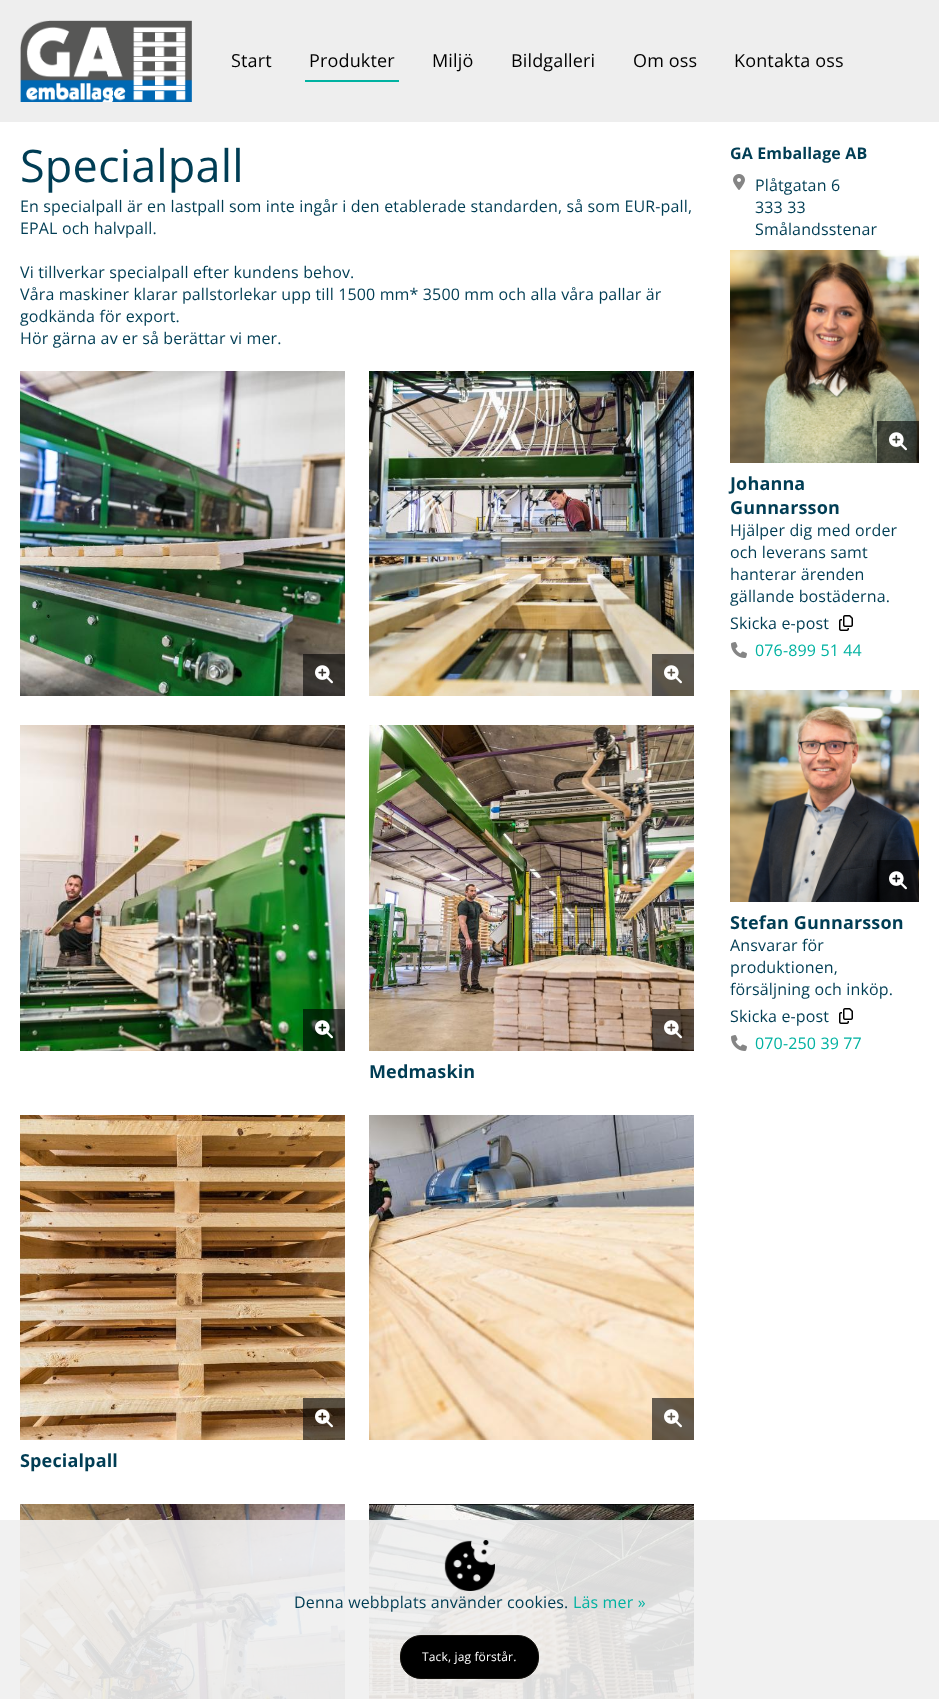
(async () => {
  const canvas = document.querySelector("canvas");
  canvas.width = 939;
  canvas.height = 1699;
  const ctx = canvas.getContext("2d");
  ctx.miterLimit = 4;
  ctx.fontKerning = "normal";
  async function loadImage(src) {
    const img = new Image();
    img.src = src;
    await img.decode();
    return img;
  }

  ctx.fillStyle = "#ffffff";
  ctx.fillRect(0, 0, 939, 1699);
  ctx.fillStyle = "#f1f1f1";
  ctx.fillRect(0, 1520, 939, 179);
  ctx.fillStyle = "#eeeeee";
  ctx.fillRect(0, 0, 939, 122);
  ctx.drawImage(await loadImage("img/1.png"), 20, 20, 172, 82);
  ctx.fillStyle = "#00b2a1";
  ctx.fillRect(305, 80, 94, 2);
  ctx.drawImage(await loadImage("img/2.png"), 20, 371, 325, 325);
  ctx.fillStyle = "rgba(0, 0, 0, 0.6)";
  ctx.fillRect(303, 654, 42, 42);
  ctx.drawImage(await loadImage("img/3.png"), 315, 665, 18, 19);
  ctx.drawImage(await loadImage("img/4.png"), 369, 371, 325, 325);
  ctx.fillRect(652, 654, 42, 42);
  ctx.drawImage(await loadImage("img/5.png"), 664, 665, 18, 19);
  ctx.drawImage(await loadImage("img/6.png"), 20, 725, 325, 326);
  ctx.fillRect(303, 1009, 42, 42);
  ctx.drawImage(await loadImage("img/7.png"), 315, 1020, 18, 19);
  ctx.drawImage(await loadImage("img/8.png"), 369, 725, 325, 326);
  ctx.fillRect(652, 1009, 42, 42);
  ctx.drawImage(await loadImage("img/9.png"), 664, 1020, 18, 19);
  ctx.drawImage(await loadImage("img/10.png"), 369, 1115, 325, 325);
  ctx.fillRect(652, 1398, 42, 42);
  ctx.drawImage(await loadImage("img/11.png"), 664, 1409, 18, 19);
  ctx.drawImage(await loadImage("img/12.png"), 20, 1115, 325, 325);
  ctx.fillRect(303, 1398, 42, 42);
  ctx.drawImage(await loadImage("img/13.png"), 315, 1409, 18, 19);
  ctx.drawImage(await loadImage("img/14.png"), 20, 1504, 325, 195);
  ctx.drawImage(await loadImage("img/15.png"), 369, 1504, 325, 195);
  ctx.drawImage(await loadImage("img/16.png"), 733, 174, 12, 16);
  ctx.drawImage(await loadImage("img/17.png"), 730, 250, 189, 213);
  ctx.fillRect(877, 421, 42, 42);
  ctx.drawImage(await loadImage("img/18.png"), 889, 432, 18, 19);
  ctx.drawImage(await loadImage("img/19.png"), 839, 615, 14, 16);
  ctx.drawImage(await loadImage("img/20.png"), 731, 642, 16, 16);
  ctx.drawImage(await loadImage("img/21.png"), 730, 690, 189, 212);
  ctx.fillRect(877, 860, 42, 42);
  ctx.drawImage(await loadImage("img/22.png"), 889, 871, 18, 19);
  ctx.drawImage(await loadImage("img/19.png"), 839, 1008, 14, 16);
  ctx.drawImage(await loadImage("img/20.png"), 731, 1035, 16, 16);
  ctx.drawImage(await loadImage("img/23.png"), 444, 1540, 51, 51);
  ctx.fillStyle = "#000000";
  ctx.beginPath();
  ctx.roundRect(400.5, 1635.5, 138, 43, 20.5);
  ctx.fill();
  ctx.strokeStyle = "#12100b";
  ctx.stroke();
  ctx.letterSpacing = "0.15px";
  ctx.font = "18px Open Sans";
  for (const [text, x, y] of [
    ["Start", 231, 67],
    ["Produkter", 309, 67],
    ["Miljö", 432, 67],
    ["Bildgalleri", 511, 67],
    ["Om oss", 633, 67],
    ["Kontakta oss", 734, 67],
  ]) {
    ctx.fillText(text, x, y);
  }
  ctx.font = "45px Open Sans";
  ctx.fillStyle = "#003d54";
  ctx.fillText("Specialpall", 20, 182);
  ctx.font = "16px Open Sans";
  for (const [text, x, y] of [
    ["En specialpall är en lastpall som inte ingår i den etablerade standarden, så som EUR-pall,", 20, 212],
    ["EPAL och halvpall.", 20, 234],
    ["Vi tillverkar specialpall efter kundens behov.", 20, 278],
    ["Våra maskiner klarar pallstorlekar upp till 1500 mm* 3500 mm och alla våra pallar är", 20, 300],
    ["godkända för export.", 20, 322],
    ["Hör gärna av er så berättar vi mer.", 20, 344],
  ]) {
    ctx.fillText(text, x, y);
  }
  ctx.font = "bold 18px Open Sans";
  ctx.fillText("Medmaskin", 369, 1078);
  ctx.fillText("Specialpall", 20, 1467);
  ctx.font = "bold 16px Open Sans";
  ctx.fillText("GA Emballage AB", 730, 159);
  ctx.font = "16px Open Sans";
  for (const [text, x, y] of [
    ["Plåtgatan 6", 755, 191],
    ["333 33", 755, 213],
    ["Smålandsstenar", 755, 235],
  ]) {
    ctx.fillText(text, x, y);
  }
  ctx.font = "bold 18px Open Sans";
  ctx.fillText("Johanna", 730, 490);
  ctx.fillText("Gunnarsson", 730, 514);
  ctx.font = "16px Open Sans";
  for (const [text, x, y] of [
    ["Hjälper dig med order", 730, 536],
    ["och leverans samt", 730, 558],
    ["hanterar ärenden", 730, 580],
    ["gällande bostäderna.", 730, 602],
    ["Skicka e-post", 730, 629],
  ]) {
    ctx.fillText(text, x, y);
  }
  ctx.fillStyle = "#00b2a1";
  ctx.fillText("076-899 51 44", 755, 656);
  ctx.font = "bold 18px Open Sans";
  ctx.fillStyle = "#003d54";
  ctx.fillText("Stefan Gunnarsson", 730, 929);
  ctx.font = "16px Open Sans";
  for (const [text, x, y] of [
    ["Ansvarar för", 730, 951],
    ["produktionen,", 730, 973],
    ["försäljning och inköp.", 730, 995],
    ["Skicka e-post", 730, 1022],
  ]) {
    ctx.fillText(text, x, y);
  }
  ctx.fillStyle = "#00b2a1";
  ctx.fillText("070-250 39 77", 755, 1049);
  ctx.fillStyle = "#003d54";
  ctx.fillText("Denna webbplats använder cookies.", 294, 1608);
  ctx.fillStyle = "#00b2a1";
  ctx.fillText("Läs mer »", 573, 1608);
  ctx.font = "12px Open Sans";
  ctx.fillStyle = "#ffffff";
  ctx.fillText("Tack, jag förstår.", 422, 1661);
})();
